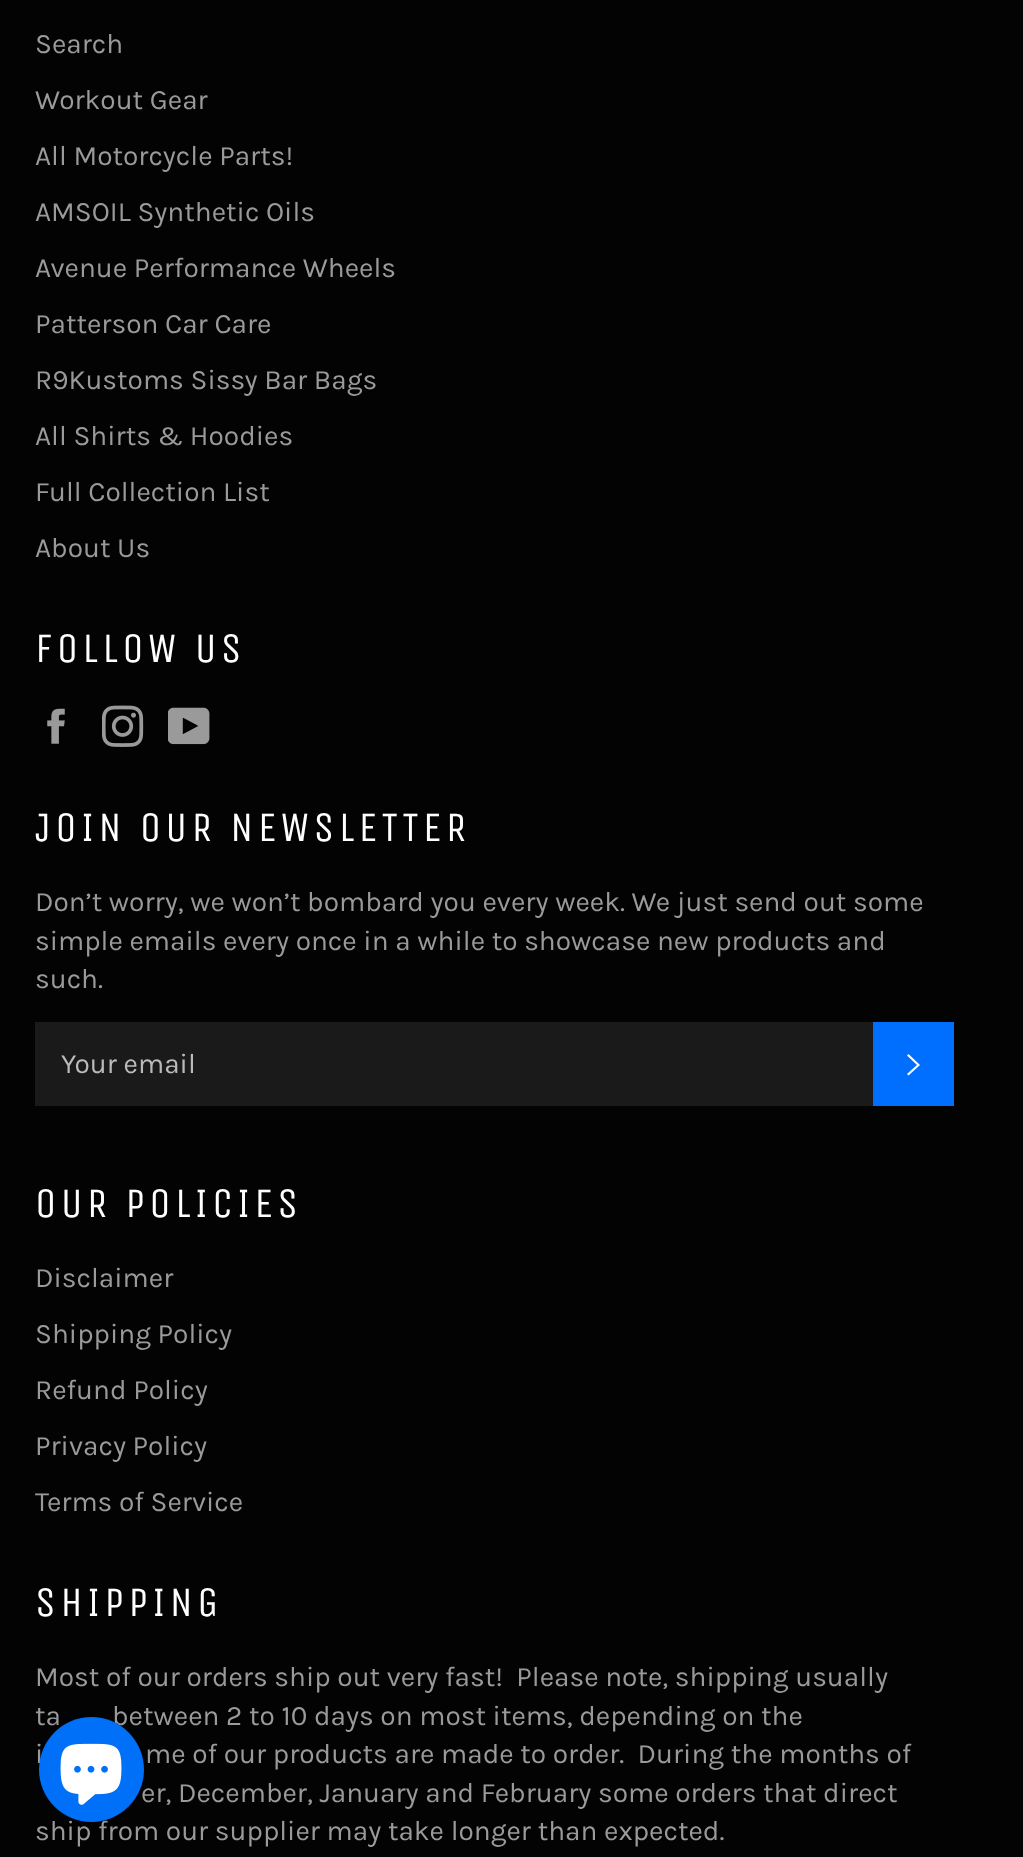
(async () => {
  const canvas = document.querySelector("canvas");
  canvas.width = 1023;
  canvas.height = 1857;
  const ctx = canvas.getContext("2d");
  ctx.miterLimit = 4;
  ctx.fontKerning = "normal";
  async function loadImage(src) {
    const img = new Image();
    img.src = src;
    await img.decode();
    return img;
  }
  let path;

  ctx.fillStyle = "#030303";
  ctx.fillRect(0, 0, 1023, 1857);
  ctx.drawImage(await loadImage("img/1.png"), 47, 708, 18, 36);
  ctx.drawImage(await loadImage("img/2.png"), 102, 705, 42, 42);
  ctx.drawImage(await loadImage("img/3.png"), 168, 707, 42, 38);
  ctx.fillStyle = "#1a1a1a";
  ctx.fillRect(35, 1022, 838, 84);
  ctx.fillStyle = "#006eff";
  ctx.fillRect(873, 1022, 81, 84);
  ctx.fillStyle = "#ffffff";
  path = new Path2D("M907 1055.5L908.5 1054L920 1065L908.5 1075.5L907 1074L917 1065Z");
  ctx.fill(path);
  ctx.font = "28px Karla";
  ctx.fillStyle = "#9a9a9a";
  for (const [text, x, y] of [
    ["Search", 35, 53],
    ["Workout Gear", 35, 109],
    ["All Motorcycle Parts!", 35, 165],
    ["AMSOIL Synthetic Oils", 35, 221],
    ["Avenue Performance Wheels", 35, 277],
    ["Patterson Car Care", 35, 333],
    ["R9Kustoms Sissy Bar Bags", 35, 389],
    ["All Shirts & Hoodies", 35, 445],
    ["Full Collection List", 35, 501],
    ["About Us", 35, 557],
  ]) {
    ctx.fillText(text, x, y);
  }
  ctx.letterSpacing = "4.25px";
  ctx.font = "42px Unica One";
  ctx.fillStyle = "#ffffff";
  ctx.fillText("FOLLOW US", 35, 662);
  ctx.fillText("JOIN OUR NEWSLETTER", 35, 841);
  ctx.letterSpacing = "0px";
  ctx.font = "28px Karla";
  ctx.fillStyle = "#9a9a9a";
  for (const [text, x, y] of [
    ["Don’t worry, we won’t bombard you every week. We just send out some", 35, 911],
    ["simple emails every once in a while to showcase new products and", 35, 950],
    ["such.", 35, 988],
  ]) {
    ctx.fillText(text, x, y);
  }
  ctx.fillStyle = "#bababa";
  ctx.fillText("Your email", 61, 1073);
  ctx.letterSpacing = "4.25px";
  ctx.font = "42px Unica One";
  ctx.fillStyle = "#ffffff";
  ctx.fillText("OUR POLICIES", 35, 1217);
  ctx.letterSpacing = "0px";
  ctx.font = "28px Karla";
  ctx.fillStyle = "#9a9a9a";
  for (const [text, x, y] of [
    ["Disclaimer", 35, 1287],
    ["Shipping Policy", 35, 1343],
    ["Refund Policy", 35, 1399],
    ["Privacy Policy", 35, 1455],
    ["Terms of Service", 35, 1511],
  ]) {
    ctx.fillText(text, x, y);
  }
  ctx.letterSpacing = "4.25px";
  ctx.font = "42px Unica One";
  ctx.fillStyle = "#ffffff";
  ctx.fillText("SHIPPING", 35, 1616);
  ctx.letterSpacing = "0px";
  ctx.font = "28px Karla";
  ctx.fillStyle = "#9a9a9a";
  for (const [text, x, y] of [
    ["Most of our orders ship out very fast!  Please note, shipping usually", 35, 1686],
    ["ta", 35, 1725],
    ["between 2 to 10 days on most items, depending on the", 112, 1725],
    ["i", 35, 1763],
    ["me of our products are made to order.  During the months of", 145, 1763],
    ["er, December, January and February some orders that direct", 141, 1802],
    ["ship from our supplier may take longer than expected.", 35, 1840],
  ]) {
    ctx.fillText(text, x, y);
  }
  ctx.fillStyle = "#0070f8";
  ctx.beginPath();
  ctx.arc(91.5, 1769.5, 52.5, 0, Math.PI * 2);
  ctx.fill();
  ctx.drawImage(await loadImage("img/4.png"), 60, 1743, 62, 62);
})();
